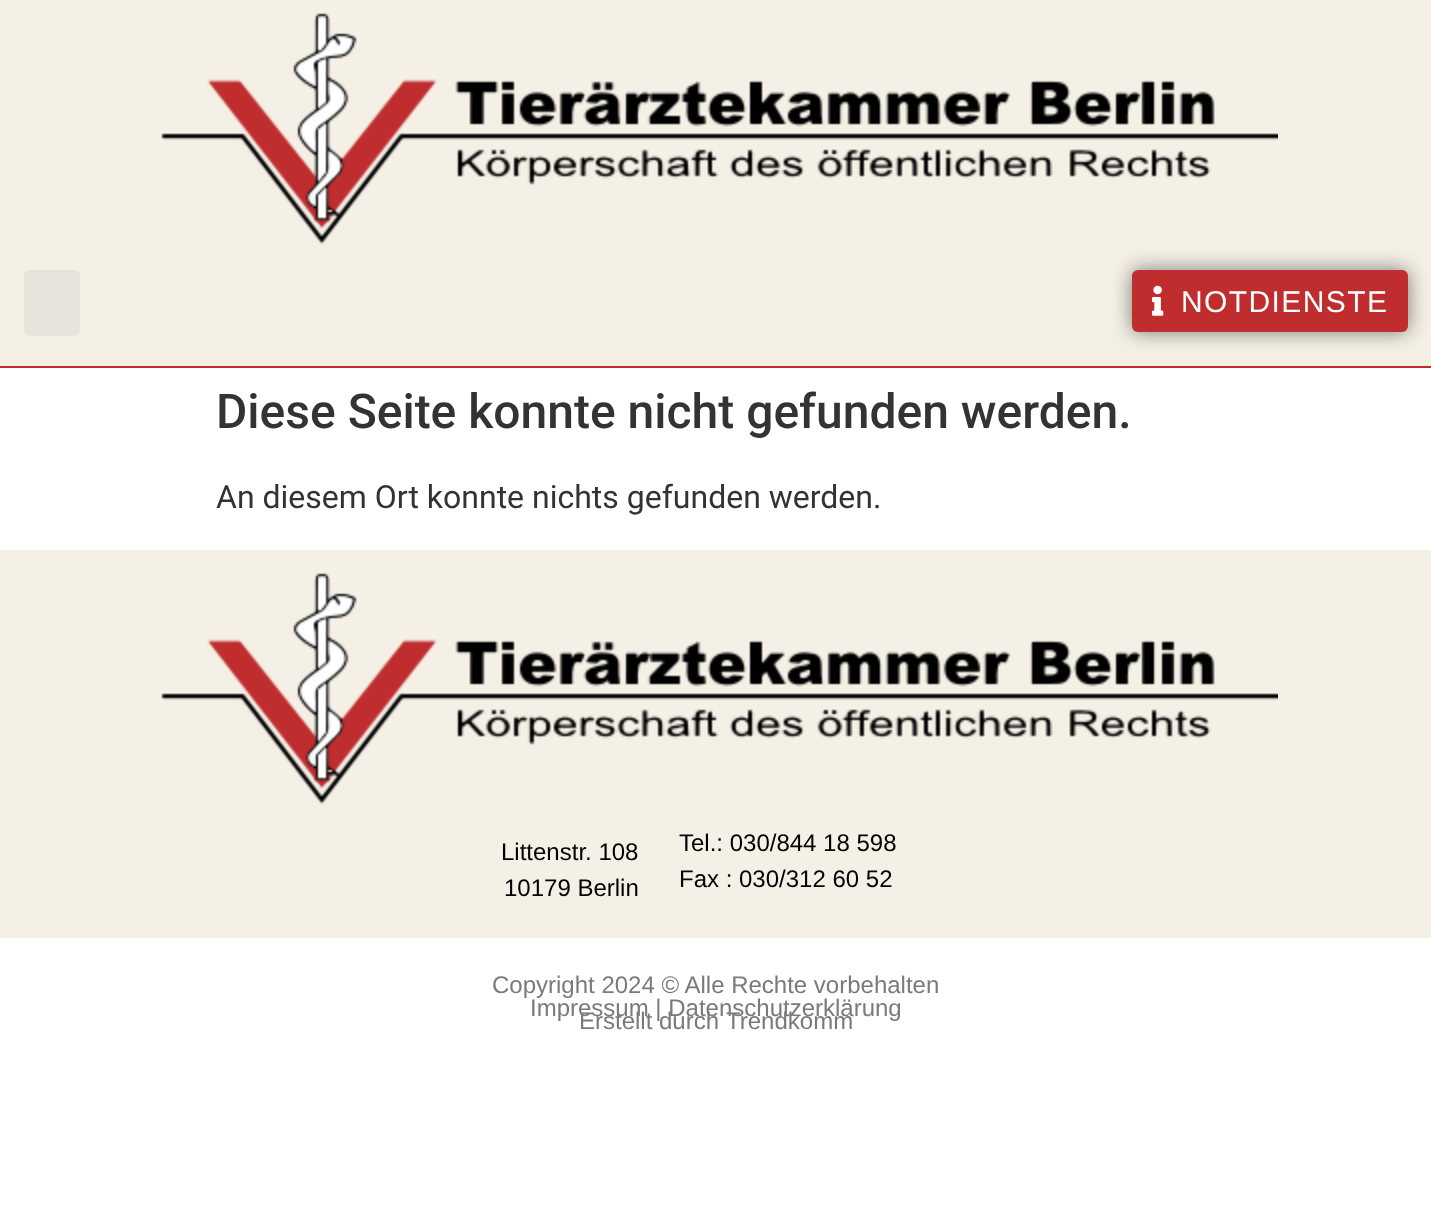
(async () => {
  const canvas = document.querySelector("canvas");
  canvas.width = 1431;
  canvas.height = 1219;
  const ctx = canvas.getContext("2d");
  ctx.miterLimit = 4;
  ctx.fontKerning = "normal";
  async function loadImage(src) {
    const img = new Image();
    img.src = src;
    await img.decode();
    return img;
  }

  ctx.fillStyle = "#ffffff";
  ctx.fillRect(0, 0, 1431, 1219);
  ctx.fillStyle = "#f4f0e6";
  ctx.fillRect(0, 0, 1431, 366);
  ctx.fillStyle = "#bf2d2e";
  ctx.fillRect(0, 366, 1431, 2);
  ctx.drawImage(await loadImage("img/1.png"), 161, 13, 1117, 231);
  ctx.fillStyle = "#e8e4db";
  ctx.beginPath();
  ctx.roundRect(24, 270, 56, 66, 6);
  ctx.fill();
  ctx.fillStyle = "rgba(0, 0, 0, 0.5)";
  ctx.filter = "blur(10px)";
  ctx.beginPath();
  ctx.roundRect(1132, 270, 276, 62, 6);
  ctx.fill();
  ctx.filter = "none";
  ctx.fillStyle = "#bf2d2e";
  ctx.beginPath();
  ctx.roundRect(1132, 270, 276, 62, 6);
  ctx.fill();
  ctx.drawImage(await loadImage("img/2.png"), 1152, 285, 12, 31);
  ctx.fillStyle = "#f4f0e6";
  ctx.fillRect(0, 550, 1431, 388);
  ctx.drawImage(await loadImage("img/1.png"), 161, 573, 1117, 231);
  ctx.letterSpacing = "1.4px";
  ctx.font = "30px Liberation Sans";
  ctx.fillStyle = "#ffffff";
  ctx.fillText("NOTDIENSTE", 1181, 312);
  ctx.letterSpacing = "0px";
  ctx.font = "500 48px Roboto";
  ctx.fillStyle = "#333333";
  ctx.fillText("Diese Seite konnte nicht gefunden werden.", 216, 428);
  ctx.font = "32px Roboto";
  ctx.fillText("An diesem Ort konnte nichts gefunden werden.", 216, 508);
  ctx.font = "24px Liberation Sans";
  ctx.fillStyle = "#000000";
  for (const [text, x, y] of [
    ["Littenstr. 108", 501, 860],
    ["10179 Berlin", 504, 896],
    ["Tel.: 030/844 18 598", 679, 851],
    ["Fax : 030/312 60 52", 679, 887],
  ]) {
    ctx.fillText(text, x, y);
  }
  ctx.fillStyle = "#7a7a7a";
  for (const [text, x, y] of [
    ["Copyright 2024 © Alle Rechte vorbehalten", 492, 993],
    ["Erstellt durch", 579, 1029],
    ["Trendkomm", 726, 1029],
    ["Impressum | Datenschutzerklärung", 530, 1016],
  ]) {
    ctx.fillText(text, x, y);
  }
})();
